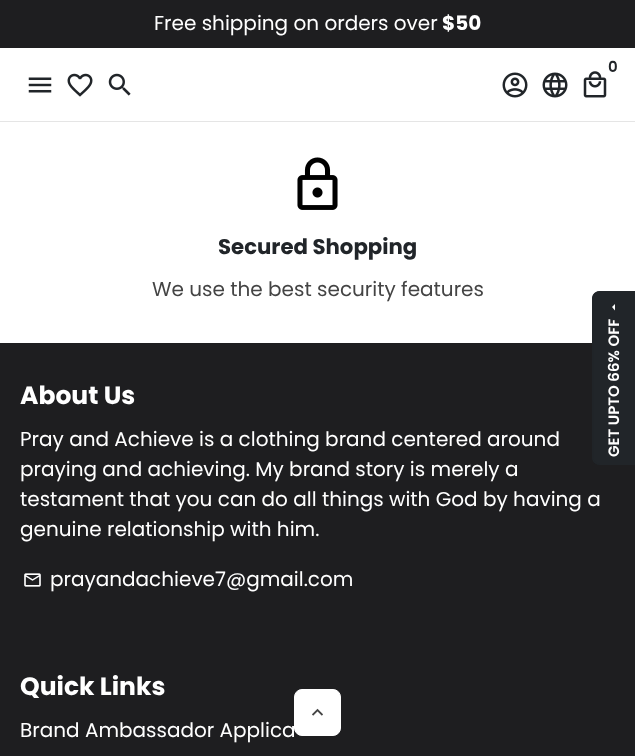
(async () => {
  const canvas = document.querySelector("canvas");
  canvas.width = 635;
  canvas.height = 756;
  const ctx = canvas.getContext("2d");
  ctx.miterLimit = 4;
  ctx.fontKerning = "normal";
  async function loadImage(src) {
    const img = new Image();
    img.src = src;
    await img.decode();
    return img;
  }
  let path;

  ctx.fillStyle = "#ffffff";
  ctx.fillRect(0, 0, 635, 756);
  ctx.fillStyle = "#1e1e20";
  ctx.fillRect(0, 0, 635, 48);
  ctx.fillStyle = "#e5e5e5";
  ctx.fillRect(0, 121, 635, 1);
  ctx.drawImage(await loadImage("img/1.png"), 583, 71, 24, 27);
  ctx.drawImage(await loadImage("img/2.png"), 502, 72, 26, 26);
  ctx.drawImage(await loadImage("img/3.png"), 542, 72, 26, 26);
  ctx.drawImage(await loadImage("img/4.png"), 28, 77, 24, 16);
  ctx.drawImage(await loadImage("img/5.png"), 67, 73, 26, 24);
  ctx.drawImage(await loadImage("img/6.png"), 108, 73, 23, 23);
  ctx.drawImage(await loadImage("img/7.png"), 297, 157, 41, 53);
  ctx.fillStyle = "#1e1e20";
  ctx.fillRect(0, 343, 635, 413);
  ctx.drawImage(await loadImage("img/8.png"), 24, 573, 17, 14);
  ctx.fillStyle = "#ffffff";
  ctx.beginPath();
  ctx.roundRect(294.5, 689.5, 46, 46, 7.5);
  ctx.fill();
  ctx.strokeStyle = "#ffffff";
  ctx.stroke();
  ctx.drawImage(await loadImage("img/9.png"), 312, 708, 11, 8);
  ctx.fillStyle = "#212529";
  path = new Path2D("M635 465H600C596 465 592 462 592 458V298C592 294 596 291 600 291H635Z");
  ctx.fill(path);
  path = new Path2D("M634.5 464.5H600C596 464.5 593 461.5 593 458V298.5C593 294.5 596 291.5 600 291.5H634.5Z");
  ctx.strokeStyle = "#212529";
  ctx.lineWidth = 1.2;
  ctx.stroke(path);
  ctx.fillStyle = "#ffffff";
  path = new Path2D("M615 310.5L612 307L615 304Z");
  ctx.fill(path);
  ctx.font = "20px Poppins";
  ctx.fillText("Free shipping on orders over", 154, 30);
  ctx.font = "bold 20px Poppins";
  ctx.fillText("$50", 442, 30);
  ctx.font = "600 15px Poppins";
  ctx.fillStyle = "#212529";
  ctx.fillText("0", 608, 72);
  ctx.font = "bold 21.25px Poppins";
  ctx.fillText("Secured Shopping", 218, 254);
  ctx.font = "20px Poppins";
  ctx.fillStyle = "#444444";
  ctx.fillText("We use the best security features", 152, 296);
  ctx.font = "bold 25px Poppins";
  ctx.fillStyle = "#ffffff";
  ctx.fillText("About Us", 20, 404);
  ctx.font = "20px Poppins";
  for (const [text, x, y] of [
    ["Pray and Achieve is a clothing brand centered around", 20, 446],
    ["praying and achieving. My brand story is merely a", 20, 476],
    ["testament that you can do all things with God by having a", 20, 506],
    ["genuine relationship with him.", 20, 536],
    ["prayandachieve7@gmail.com", 50, 586],
  ]) {
    ctx.fillText(text, x, y);
  }
  ctx.font = "bold 25px Poppins";
  ctx.fillText("Quick Links", 20, 695);
  ctx.font = "20px Poppins";
  ctx.fillText("Brand Ambassador Applica", 20, 737);
  ctx.font = "600 15px Poppins";
  ctx.save();
  ctx.translate(619, 457);
  ctx.rotate(-90 * Math.PI / 180);
  ctx.fillText("GET UPTO 66% OFF", 0, 0);
  ctx.restore();
})();
